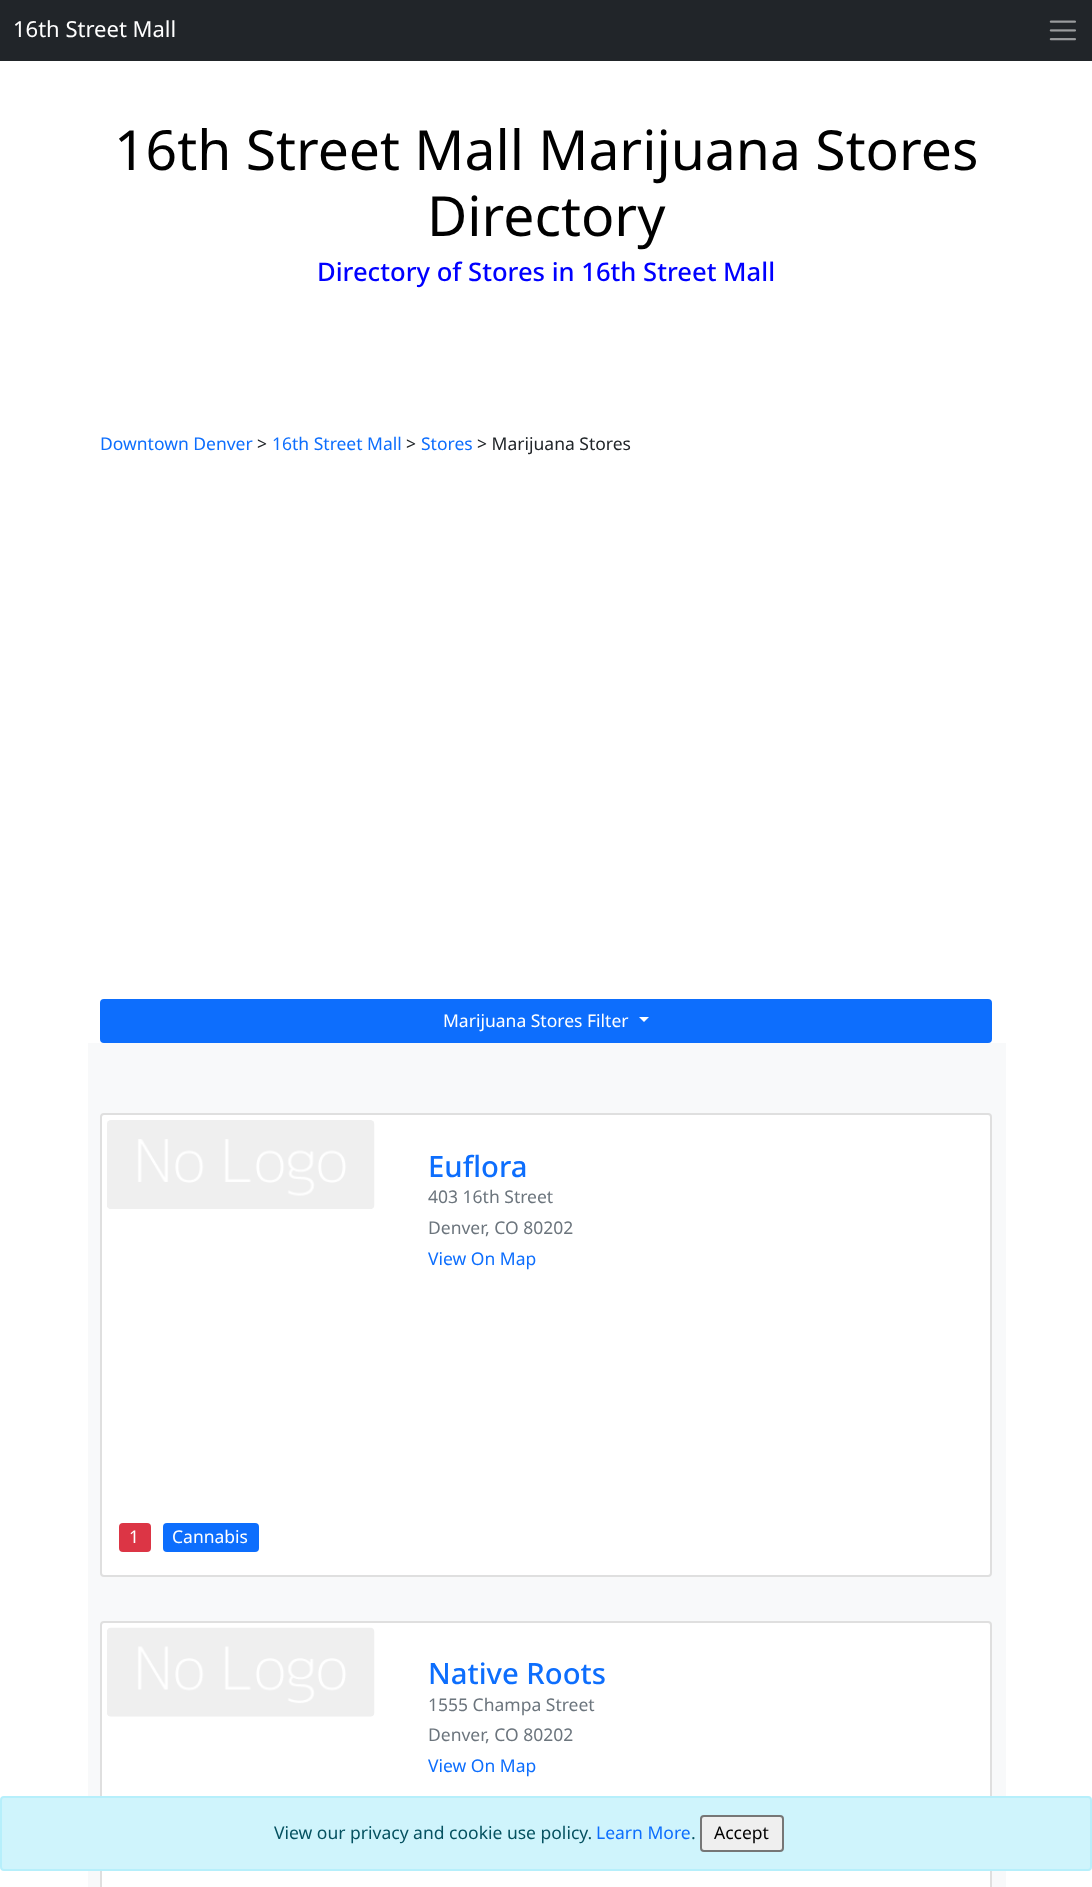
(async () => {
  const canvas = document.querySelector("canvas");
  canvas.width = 1092;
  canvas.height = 1887;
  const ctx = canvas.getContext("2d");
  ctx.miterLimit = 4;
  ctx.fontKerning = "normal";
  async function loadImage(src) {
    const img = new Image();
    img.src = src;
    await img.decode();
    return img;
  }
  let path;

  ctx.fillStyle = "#ffffff";
  ctx.fillRect(0, 0, 1092, 1887);
  ctx.fillStyle = "#212529";
  ctx.fillRect(0, 0, 1092, 61);
  ctx.drawImage(await loadImage("img/1.png"), 1049, 20, 27, 21);
  ctx.fillStyle = "#0d6efd";
  ctx.beginPath();
  ctx.roundRect(101, 1000, 890, 42, 3);
  ctx.fill();
  ctx.strokeStyle = "#0d6efd";
  ctx.lineWidth = 2;
  ctx.stroke();
  ctx.fillStyle = "#ffffff";
  path = new Path2D("M639 1017H649L644 1022Z");
  ctx.fill(path);
  ctx.fillStyle = "#f8f9fa";
  ctx.fillRect(88, 1043, 918, 844);
  ctx.fillStyle = "#ffffff";
  ctx.beginPath();
  ctx.roundRect(101, 1114, 890, 462, 3);
  ctx.fill();
  ctx.strokeStyle = "#dfdfdf";
  ctx.stroke();
  ctx.drawImage(await loadImage("img/2.png"), 107, 1120, 268, 89);
  ctx.fillStyle = "#dc3545";
  ctx.beginPath();
  ctx.roundRect(119, 1523, 32, 29, 4);
  ctx.fill();
  ctx.fillStyle = "#0d6efd";
  ctx.beginPath();
  ctx.roundRect(163, 1523, 96, 29, 4);
  ctx.fill();
  ctx.fillStyle = "#ffffff";
  ctx.beginPath();
  ctx.roundRect(101, 1622, 890, 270, 3);
  ctx.fill();
  ctx.stroke();
  ctx.drawImage(await loadImage("img/3.png"), 107, 1627, 268, 90);
  ctx.fillStyle = "#cff4fc";
  ctx.beginPath();
  ctx.roundRect(1, 1797, 1090, 73, 3);
  ctx.fill();
  ctx.strokeStyle = "#b6effb";
  ctx.stroke();
  ctx.fillStyle = "#efefef";
  ctx.beginPath();
  ctx.roundRect(701, 1816, 82, 35, 3);
  ctx.fill();
  ctx.strokeStyle = "#767676";
  ctx.stroke();
  ctx.font = "22px Noto Sans";
  ctx.fillStyle = "#ffffff";
  ctx.fillText("16th Street Mall", 13, 37);
  ctx.font = "55.25px Noto Sans";
  ctx.fillStyle = "#000000";
  ctx.fillText("16th Street Mall Marijuana Stores", 114, 170);
  ctx.fillText("Directory", 427, 236);
  ctx.font = "500 25.6px Noto Sans";
  ctx.fillStyle = "#0000ff";
  ctx.fillText("Directory of Stores in 16th Street Mall", 317, 281);
  ctx.font = "17.5px Noto Sans";
  ctx.fillStyle = "#0d6efd";
  ctx.fillText("Downtown Denver", 100, 450);
  ctx.fillStyle = "#212529";
  ctx.fillText(">", 257, 450);
  ctx.fillStyle = "#0d6efd";
  ctx.fillText("16th Street Mall", 272, 450);
  ctx.fillStyle = "#212529";
  ctx.fillText(">", 406, 450);
  ctx.fillStyle = "#0d6efd";
  ctx.fillText("Stores", 421, 450);
  ctx.fillStyle = "#212529";
  ctx.fillText("> Marijuana Stores", 477, 450);
  ctx.fillStyle = "#ffffff";
  ctx.fillText("Marijuana Stores Filter", 443, 1027);
  ctx.font = "500 29.25px Noto Sans";
  ctx.fillStyle = "#0d6efd";
  ctx.fillText("Euflora", 428, 1177);
  ctx.font = "17.5px Noto Sans";
  ctx.fillStyle = "#6c757d";
  for (const [text, x, y] of [
    ["403 16th Street", 428, 1203],
    ["Denver", 428, 1234],
    [", CO 80202", 485, 1234],
  ]) {
    ctx.fillText(text, x, y);
  }
  ctx.fillStyle = "#0d6efd";
  ctx.fillText("View On Map", 428, 1265);
  ctx.fillStyle = "#ffffff";
  ctx.fillText("1", 129, 1543);
  ctx.fillText("Cannabis", 172, 1543);
  ctx.font = "500 29.25px Noto Sans";
  ctx.fillStyle = "#0d6efd";
  ctx.fillText("Native Roots", 428, 1684);
  ctx.font = "17.5px Noto Sans";
  ctx.fillStyle = "#6c757d";
  for (const [text, x, y] of [
    ["1555 Champa Street", 428, 1711],
    ["Denver", 428, 1741],
    [", CO 80202", 485, 1741],
  ]) {
    ctx.fillText(text, x, y);
  }
  ctx.fillStyle = "#0d6efd";
  ctx.fillText("View On Map", 428, 1772);
  ctx.fillStyle = "#055160";
  ctx.fillText("View our privacy and cookie use policy.", 274, 1839);
  ctx.fillStyle = "#0d6efd";
  ctx.fillText("Learn More", 596, 1839);
  ctx.fillStyle = "#055160";
  ctx.fillText(".", 691, 1839);
  ctx.fillStyle = "#000000";
  ctx.fillText("Accept", 714, 1839);
})();
